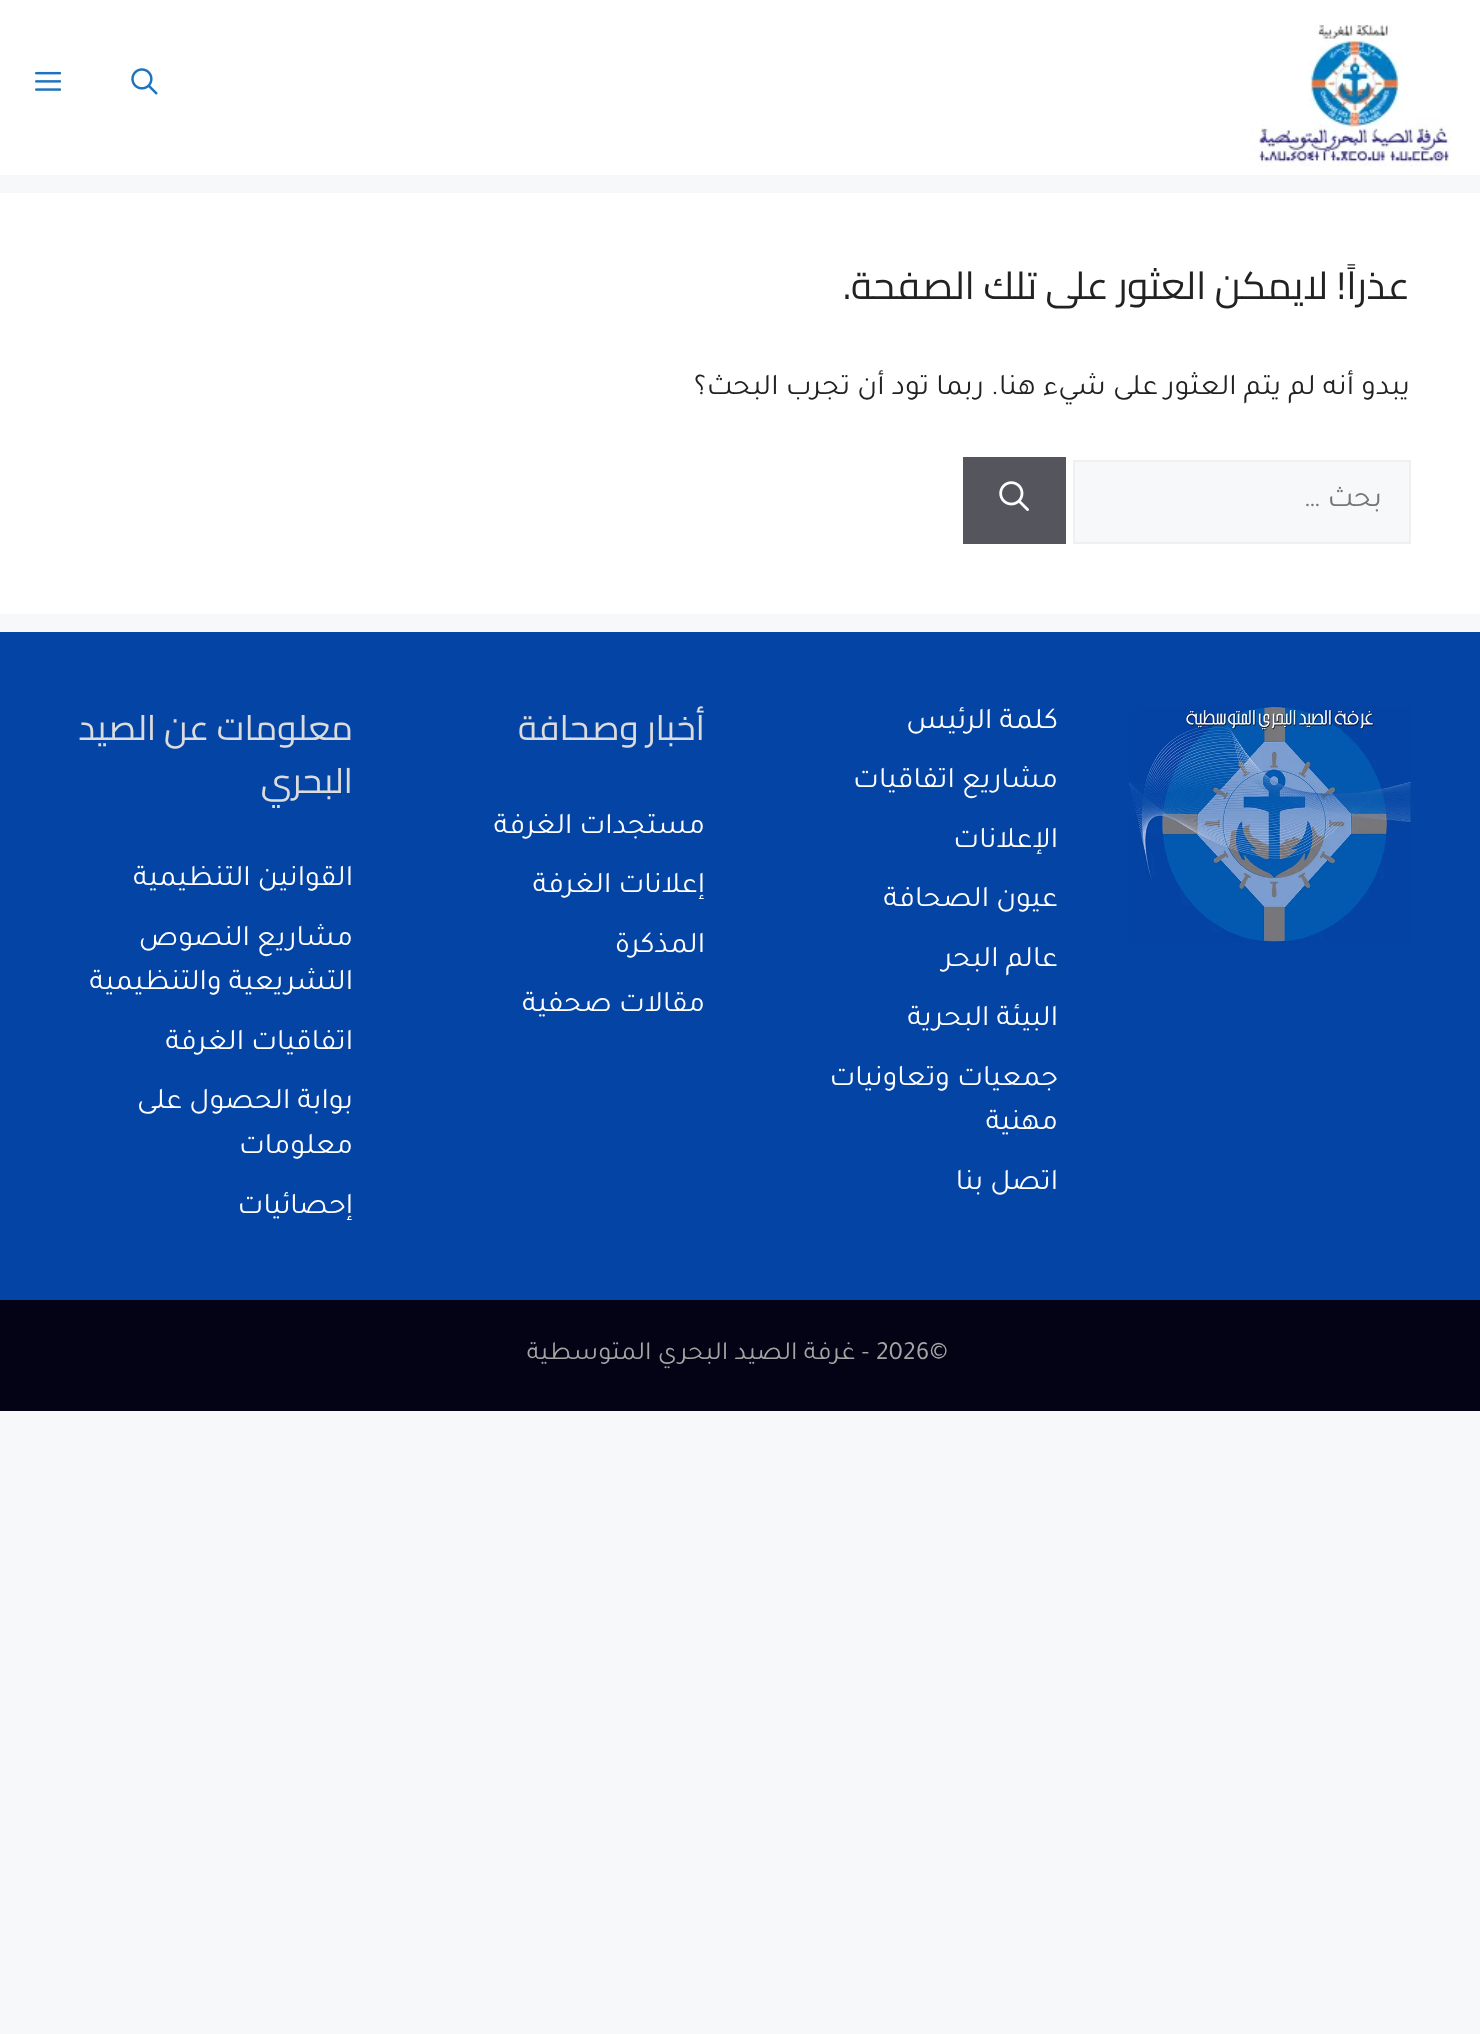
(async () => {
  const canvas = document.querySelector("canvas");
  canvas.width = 1480;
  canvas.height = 2034;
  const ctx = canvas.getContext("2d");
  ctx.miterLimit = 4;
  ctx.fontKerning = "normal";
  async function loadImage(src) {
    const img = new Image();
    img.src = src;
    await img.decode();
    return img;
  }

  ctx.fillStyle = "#f7f8f9";
  ctx.fillRect(0, 0, 1480, 2034);
  ctx.fillStyle = "#ffffff";
  ctx.fillRect(0, 0, 1480, 175);
  ctx.drawImage(await loadImage("img/1.png"), 1250, 24, 202, 143);
  ctx.drawImage(await loadImage("img/2.png"), 131, 68, 27, 27);
  ctx.drawImage(await loadImage("img/3.png"), 35, 71, 26, 20);
  ctx.fillRect(0, 193, 1480, 421);
  ctx.fillStyle = "#f7f8f9";
  ctx.beginPath();
  ctx.rect(1074, 461, 336, 82);
  ctx.fill();
  ctx.strokeStyle = "#f0f0f0";
  ctx.lineWidth = 2;
  ctx.stroke();
  ctx.fillStyle = "#55555e";
  ctx.fillRect(963, 457, 103, 87);
  ctx.drawImage(await loadImage("img/4.png"), 999, 481, 30, 30);
  ctx.fillStyle = "#0444a5";
  ctx.fillRect(0, 632, 1480, 668);
  ctx.drawImage(await loadImage("img/5.png"), 1128, 706, 283, 237);
  ctx.fillStyle = "#030315";
  ctx.fillRect(0, 1300, 1480, 111);
  ctx.direction = "rtl";
  ctx.font = "38.5px Cairo";
  ctx.fillStyle = "#222222";
  ctx.fillText("عذراً! لايمكن العثور على تلك الصفحة.", 1410, 299);
  ctx.font = "29.75px Tajawal";
  ctx.fillText("يبدو أنه لم يتم العثور على شيء هنا. ربما تود أن تجرب البحث؟", 1410, 394);
  ctx.fillStyle = "#757575";
  ctx.fillText("بحث …", 1382, 506);
  ctx.fillStyle = "#ffffff";
  for (const [text, x, y] of [
    ["كلمة الرئيس", 1058, 728],
    ["مشاريع اتفاقيات", 1058, 787],
    ["الإعلانات", 1058, 847],
    ["عيون الصحافة", 1058, 906],
    ["عالم البحر", 1058, 966],
    ["البيئة البحرية", 1058, 1025],
    ["جمعيات وتعاونيات", 1058, 1085],
    ["مهنية", 1058, 1129],
    ["اتصل بنا", 1058, 1189],
  ]) {
    ctx.fillText(text, x, y);
  }
  ctx.font = "35px Cairo";
  ctx.fillStyle = "#dcdcdc";
  ctx.fillText("أخبار وصحافة", 705, 740);
  ctx.font = "29.75px Tajawal";
  ctx.fillStyle = "#ffffff";
  for (const [text, x, y] of [
    ["مستجدات الغرفة", 705, 833],
    ["إعلانات الغرفة", 705, 892],
    ["المذكرة", 705, 952],
    ["مقالات صحفية", 705, 1011],
  ]) {
    ctx.fillText(text, x, y);
  }
  ctx.font = "35px Cairo";
  ctx.fillStyle = "#dcdcdc";
  ctx.fillText("معلومات عن الصيد", 353, 740);
  ctx.fillText("البحري", 353, 793);
  ctx.font = "29.75px Tajawal";
  ctx.fillStyle = "#ffffff";
  for (const [text, x, y] of [
    ["القوانين التنظيمية", 353, 885],
    ["مشاريع النصوص", 353, 945],
    ["التشريعية والتنظيمية", 353, 989],
    ["اتفاقيات الغرفة", 353, 1049],
    ["بوابة الحصول على", 353, 1108],
    ["معلومات", 353, 1153],
    ["إحصائيات", 353, 1213],
  ]) {
    ctx.fillText(text, x, y);
  }
  ctx.direction = "ltr";
  ctx.font = "26.25px Tajawal";
  ctx.fillStyle = "#a4a4a4";
  ctx.fillText("2026©", 876, 1359);
  ctx.direction = "rtl";
  ctx.fillText("- غرفة الصيد البحري المتوسطية", 869, 1359);
})();
